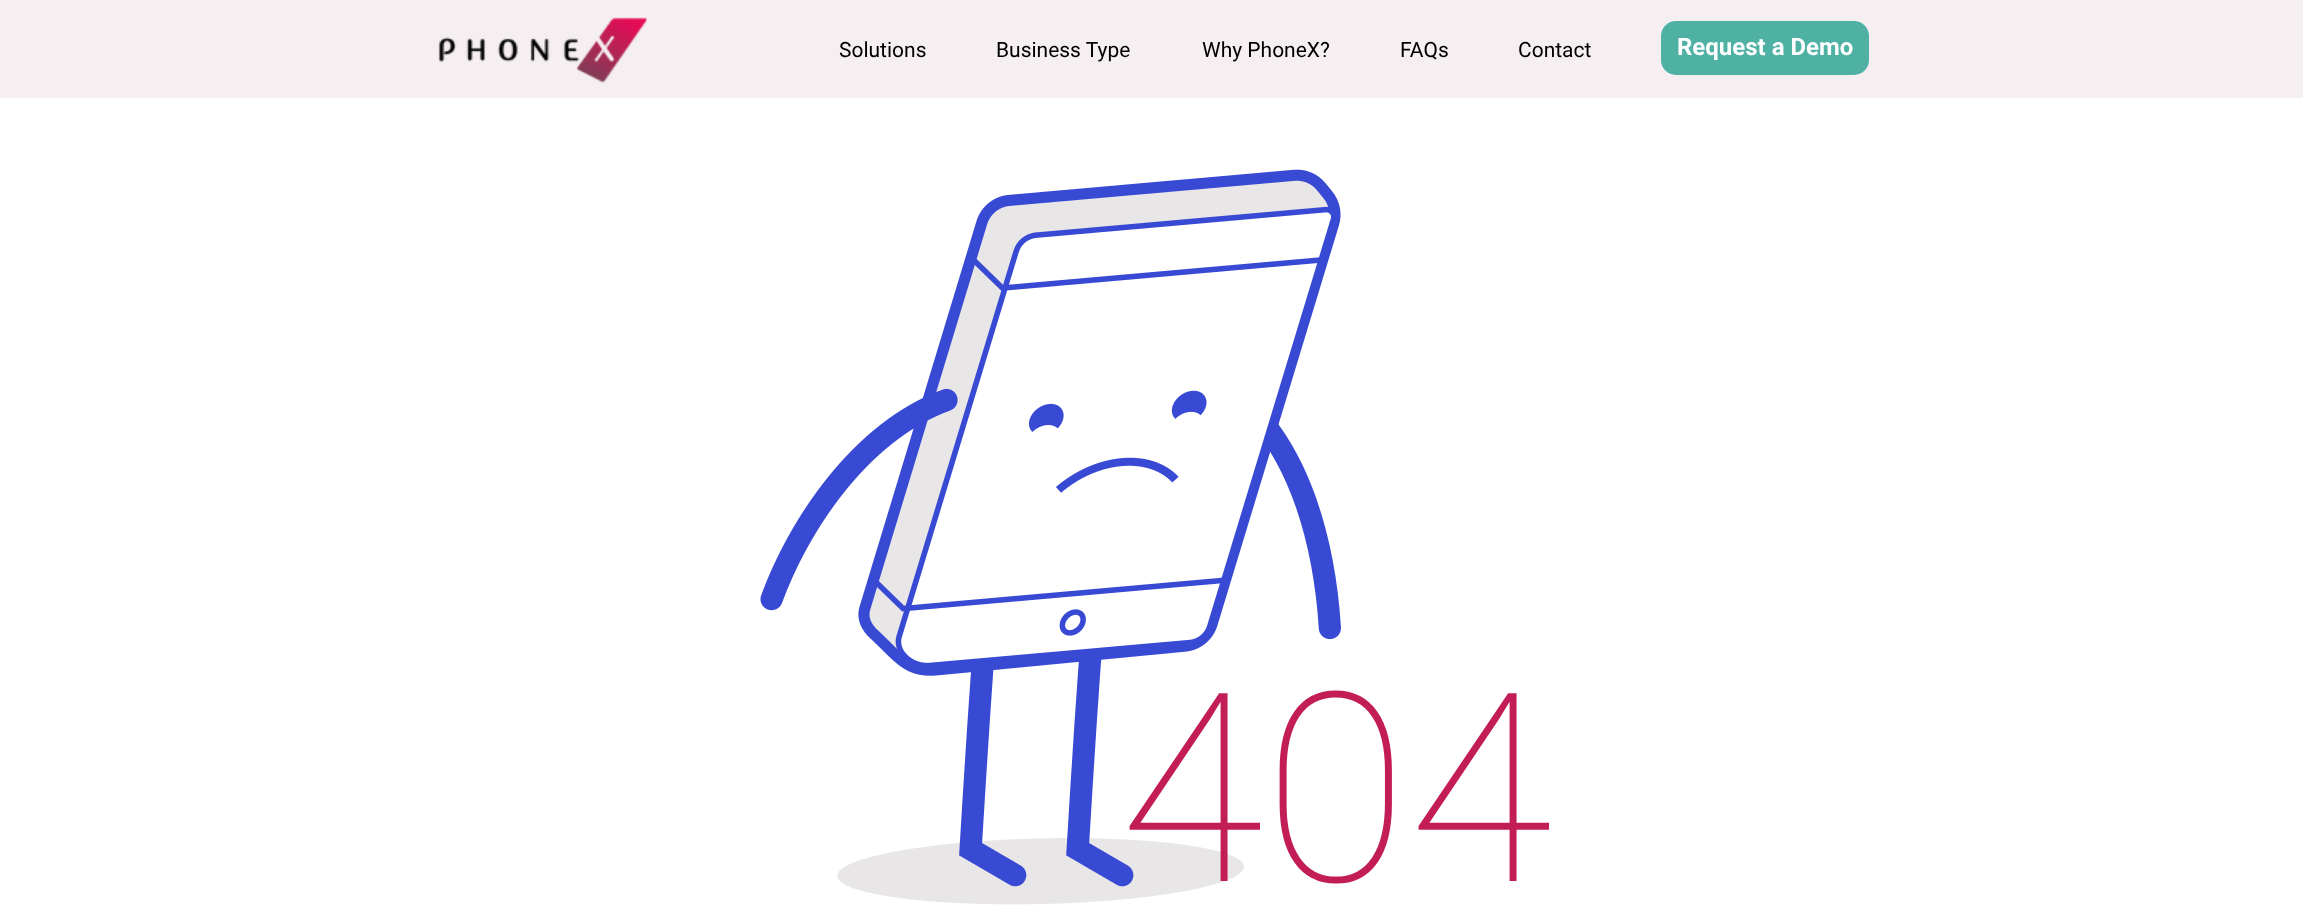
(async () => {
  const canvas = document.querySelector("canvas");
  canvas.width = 2303;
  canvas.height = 909;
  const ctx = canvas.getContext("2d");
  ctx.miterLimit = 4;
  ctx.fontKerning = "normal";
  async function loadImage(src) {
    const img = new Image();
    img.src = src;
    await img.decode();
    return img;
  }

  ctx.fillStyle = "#ffffff";
  ctx.fillRect(0, 0, 2303, 909);
  ctx.fillStyle = "#f5eff1";
  ctx.fillRect(0, 0, 2303, 98);
  ctx.drawImage(await loadImage("img/1.png"), 438, 17, 209, 66);
  ctx.fillStyle = "#4fb1a3";
  ctx.beginPath();
  ctx.roundRect(1661, 21, 208, 54, 15);
  ctx.fill();
  ctx.drawImage(await loadImage("img/2.png"), 760, 169, 581, 736);
  ctx.font = "21px Roboto";
  ctx.fillStyle = "#000000";
  for (const [text, x, y] of [
    ["Solutions", 839, 57],
    ["Business Type", 996, 57],
    ["Why PhoneX?", 1202, 57],
    ["FAQs", 1400, 57],
    ["Contact", 1518, 57],
  ]) {
    ctx.fillText(text, x, y);
  }
  ctx.font = "bold 24px Roboto";
  ctx.fillStyle = "#ffffff";
  ctx.fillText("Request a Demo", 1677, 55);
  ctx.font = "100 264px Roboto";
  ctx.fillStyle = "#c31d58";
  ctx.fillText("404", 1119, 881);
})();
